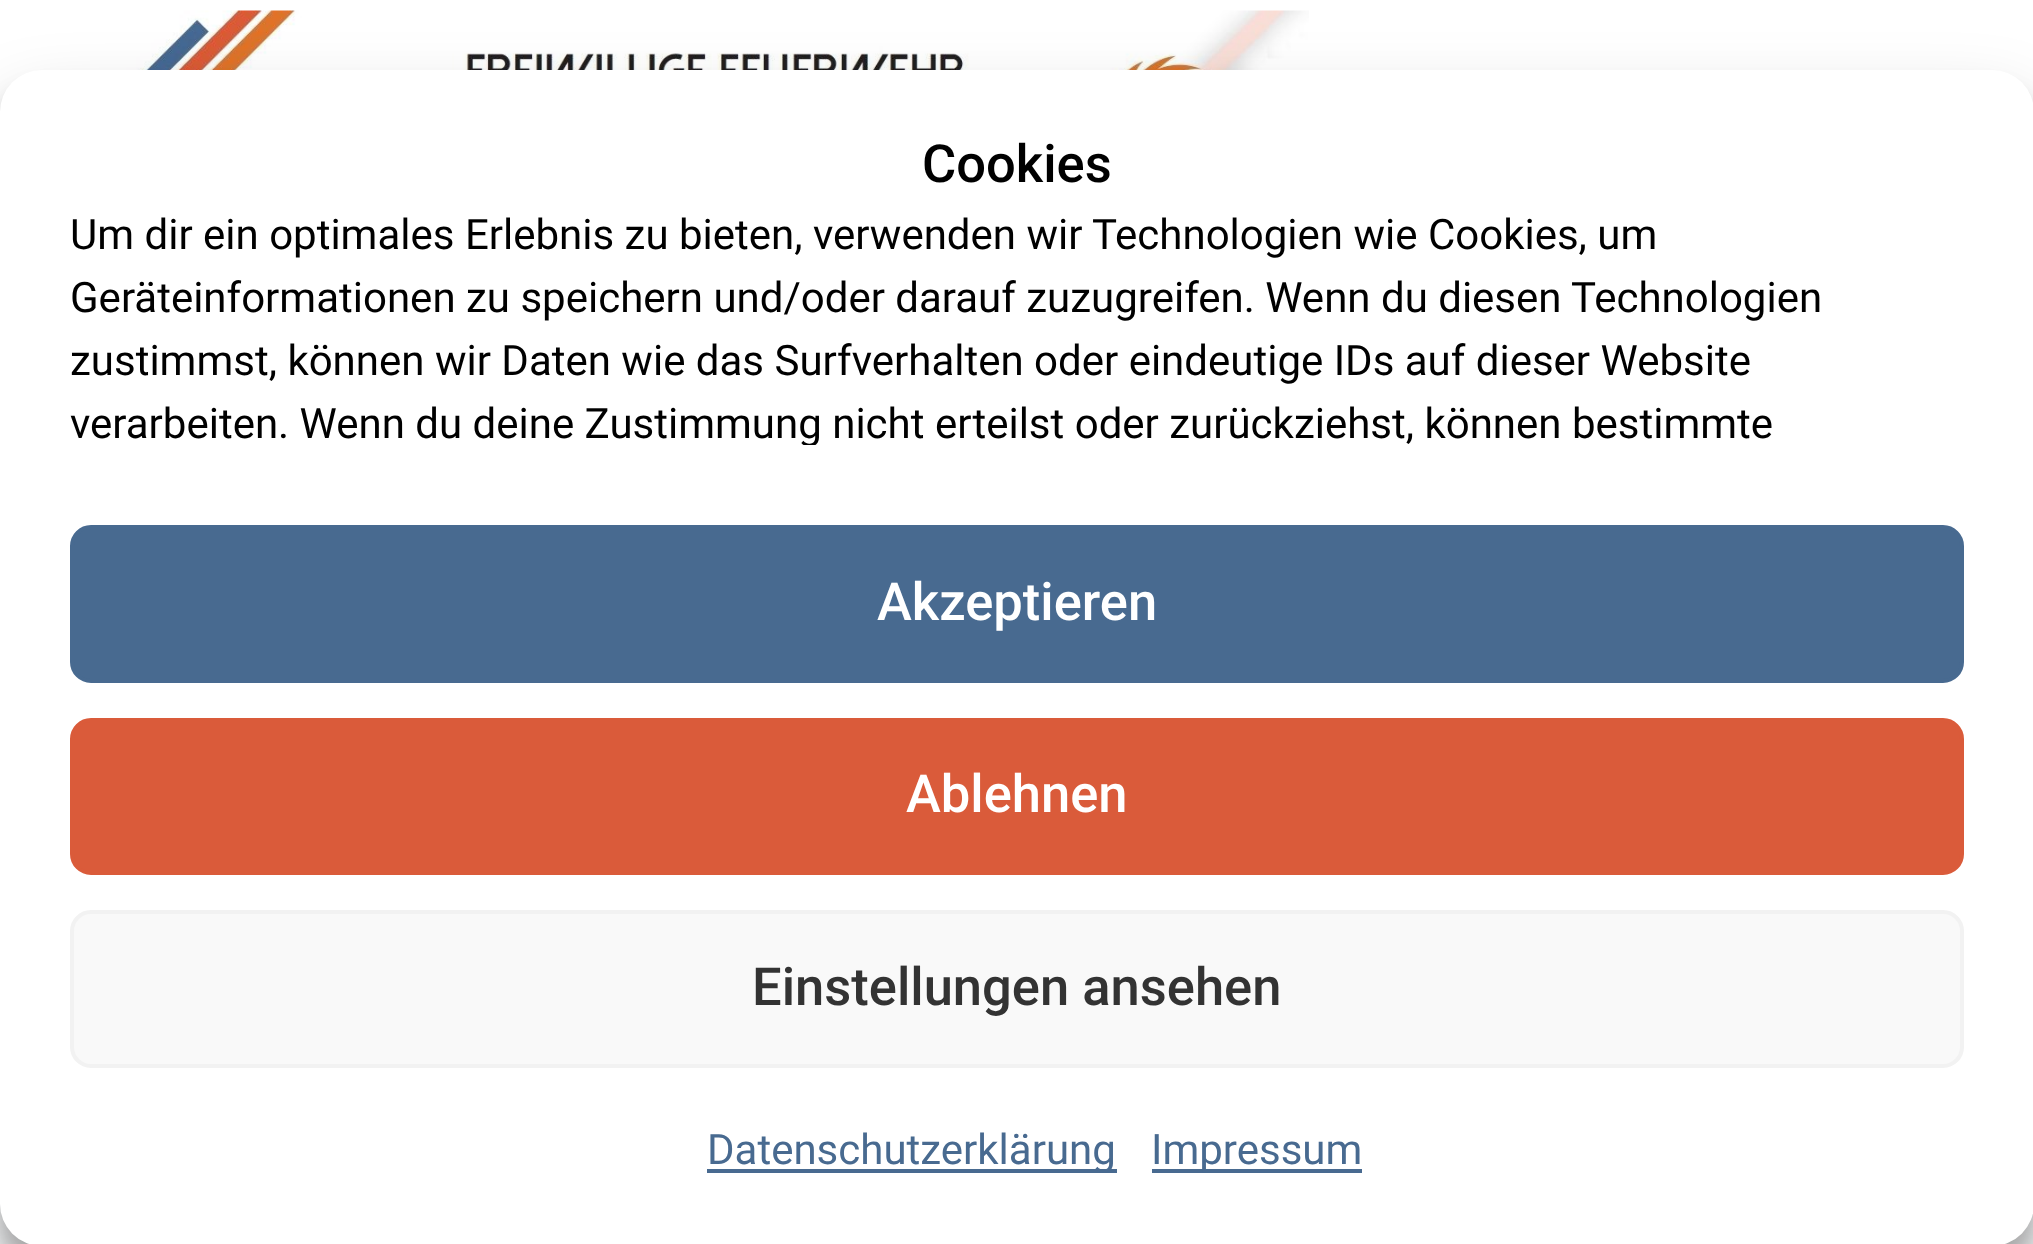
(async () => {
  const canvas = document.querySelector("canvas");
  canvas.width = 2033;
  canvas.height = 1244;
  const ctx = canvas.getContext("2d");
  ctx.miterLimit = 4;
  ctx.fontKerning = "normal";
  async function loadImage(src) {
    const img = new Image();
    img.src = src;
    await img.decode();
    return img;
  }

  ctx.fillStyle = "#fafbfc";
  ctx.fillRect(0, 0, 2033, 1244);
  ctx.fillStyle = "#ffffff";
  ctx.fillRect(0, 0, 2033, 112);
  ctx.drawImage(await loadImage("img/1.png"), 122, 10, 1187, 60);
  ctx.fillStyle = "rgba(0, 0, 0, 0.23)";
  ctx.filter = "blur(10.5px)";
  ctx.beginPath();
  ctx.roundRect(0, 91, 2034, 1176, 42);
  ctx.fill();
  ctx.filter = "none";
  ctx.fillStyle = "rgba(0, 0, 0, 0.19)";
  ctx.filter = "blur(35px)";
  ctx.beginPath();
  ctx.roundRect(0, 105, 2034, 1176, 42);
  ctx.fill();
  ctx.filter = "none";
  ctx.fillStyle = "#ffffff";
  ctx.beginPath();
  ctx.roundRect(0, 70, 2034, 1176, 42);
  ctx.fill();
  ctx.fillStyle = "#486a90";
  ctx.beginPath();
  ctx.roundRect(72, 527, 1890, 154, 19);
  ctx.fill();
  ctx.strokeStyle = "#486a90";
  ctx.lineWidth = 4;
  ctx.stroke();
  ctx.fillStyle = "#da5b3a";
  ctx.beginPath();
  ctx.roundRect(72, 720, 1890, 153, 19);
  ctx.fill();
  ctx.strokeStyle = "#da5b3a";
  ctx.stroke();
  ctx.fillStyle = "#f9f9f9";
  ctx.beginPath();
  ctx.roundRect(72, 912, 1890, 154, 19);
  ctx.fill();
  ctx.strokeStyle = "#f2f2f2";
  ctx.stroke();
  ctx.fillStyle = "#486a90";
  ctx.fillRect(707, 1169, 410, 4);
  ctx.fillRect(1152, 1169, 210, 4);
  ctx.font = "500 52.5px Roboto";
  ctx.fillStyle = "#000000";
  ctx.fillText("Cookies", 922, 182);
  ctx.font = "42px Roboto";
  for (const [text, x, y] of [
    ["Um dir ein optimales Erlebnis zu bieten, verwenden wir Technologien wie Cookies, um", 70, 249],
    ["Geräteinformationen zu speichern und/oder darauf zuzugreifen. Wenn du diesen Technologien", 70, 312],
    ["zustimmst, können wir Daten wie das Surfverhalten oder eindeutige IDs auf dieser Website", 70, 375],
  ]) {
    ctx.fillText(text, x, y);
  }
  ctx.save();
  ctx.beginPath();
  ctx.rect(70, 203, 1894, 242);
  ctx.clip();
  ctx.fillText("verarbeiten. Wenn du deine Zustimmung nicht erteilst oder zurückziehst, können bestimmte", 70, 438);
  ctx.restore();
  ctx.font = "500 52.5px Roboto";
  ctx.fillStyle = "#ffffff";
  ctx.fillText("Akzeptieren", 877, 620);
  ctx.fillText("Ablehnen", 906, 812);
  ctx.fillStyle = "#333333";
  ctx.fillText("Einstellungen ansehen", 752, 1005);
  ctx.font = "42px Roboto";
  ctx.fillStyle = "#486a90";
  ctx.fillText("Datenschutzerklärung", 707, 1164);
  ctx.fillText("Impressum", 1151, 1164);
})();
